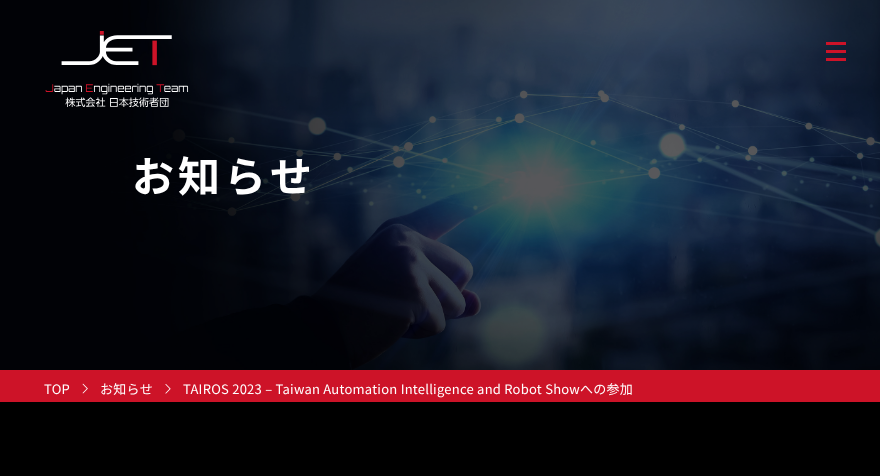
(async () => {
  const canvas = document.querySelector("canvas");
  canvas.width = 880;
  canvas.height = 476;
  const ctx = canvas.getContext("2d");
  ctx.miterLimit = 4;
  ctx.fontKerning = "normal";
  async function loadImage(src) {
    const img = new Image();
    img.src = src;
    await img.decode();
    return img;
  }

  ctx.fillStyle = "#000000";
  ctx.fillRect(0, 0, 880, 476);
  ctx.drawImage(await loadImage("img/2.png"), 0, 0, 880, 370);
  ctx.drawImage(await loadImage("img/1.png"), 45, 31, 144, 76);
  for (const [x, y, w, h, color] of [
    [826, 42, 20, 3, "#cd1328"],
    [826, 50, 20, 3, "#cd1328"],
    [826, 58, 20, 3, "#cd1328"],
    [0, 370, 880, 32, "#cd1328"],
  ]) {
    ctx.fillStyle = color;
    ctx.fillRect(x, y, w, h);
  }
  ctx.drawImage(await loadImage("img/3.png"), 82, 383, 6, 11);
  ctx.drawImage(await loadImage("img/4.png"), 165, 384, 6, 10);
  ctx.letterSpacing = "4px";
  ctx.font = "bold 42px Noto Sans JP";
  ctx.fillStyle = "#ffffff";
  ctx.fillText("お知らせ", 132, 192);
  ctx.letterSpacing = "0.25px";
  ctx.font = "13px Noto Sans JP";
  for (const [text, x, y] of [
    ["TOP", 44, 394],
    ["お知らせ", 100, 394],
    ["TAIROS 2023 – Taiwan Automation Intelligence and Robot Showへの参加", 183, 394],
  ]) {
    ctx.fillText(text, x, y);
  }
})();
